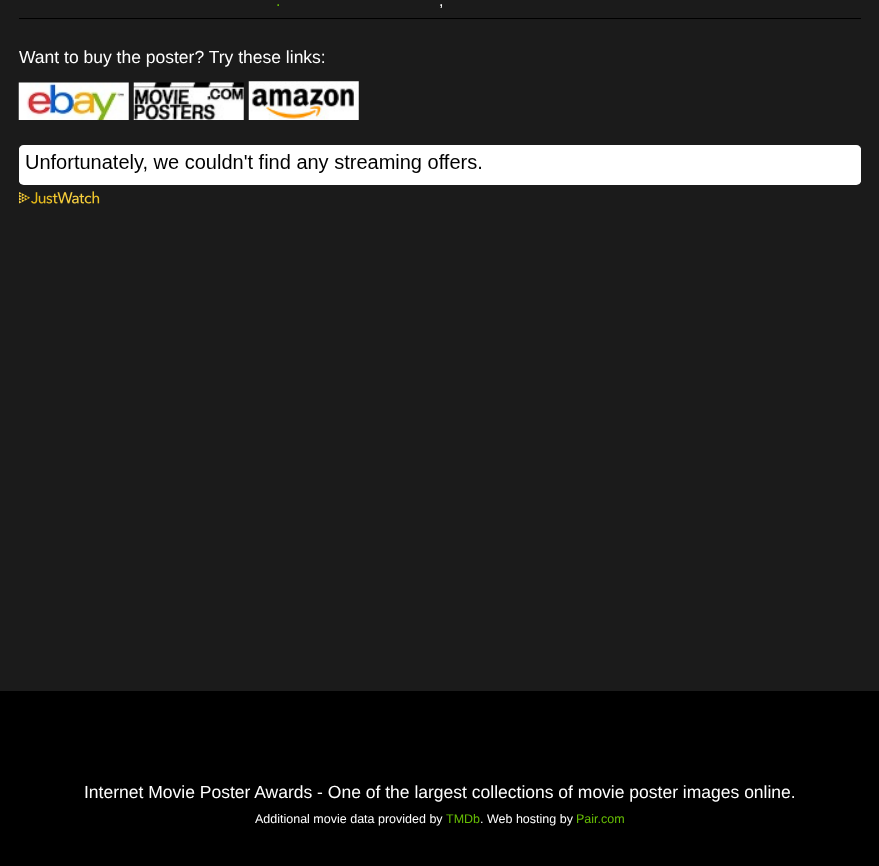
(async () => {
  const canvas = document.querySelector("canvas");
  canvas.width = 879;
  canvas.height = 866;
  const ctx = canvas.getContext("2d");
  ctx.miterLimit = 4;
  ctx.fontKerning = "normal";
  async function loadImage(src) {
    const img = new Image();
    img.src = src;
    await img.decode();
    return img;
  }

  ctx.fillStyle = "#000000";
  ctx.fillRect(0, 0, 879, 866);
  ctx.fillStyle = "#1b1b1b";
  ctx.fillRect(0, 0, 879, 691);
  ctx.fillStyle = "#000000";
  ctx.fillRect(19, 18, 842, 1);
  ctx.drawImage(await loadImage("img/1.png"), 18, 82, 111, 38);
  ctx.drawImage(await loadImage("img/2.png"), 133, 82, 111, 38);
  ctx.drawImage(await loadImage("img/3.png"), 248, 81, 111, 39);
  ctx.drawImage(await loadImage("img/4.png"), 19, 145, 842, 40);
  ctx.drawImage(await loadImage("img/5.png"), 19, 191, 81, 13);
  ctx.font = "16px Liberation Sans";
  ctx.fillStyle = "#66bd04";
  ctx.fillText(".", 276, 6);
  ctx.fillStyle = "#ffffff";
  ctx.fillText(",", 439, 6);
  ctx.font = "17.5px Liberation Sans";
  ctx.fillText("Want to buy the poster? Try these links:", 19, 63);
  ctx.fillText("Internet Movie Poster Awards - One of the largest collections of movie poster images online.", 84, 798);
  ctx.font = "12.5px Liberation Sans";
  ctx.fillText("Additional movie data provided by", 255, 823);
  ctx.fillStyle = "#66bd04";
  ctx.fillText("TMDb", 446, 823);
  ctx.fillStyle = "#ffffff";
  ctx.fillText(". Web hosting by", 480, 823);
  ctx.fillStyle = "#66bd04";
  ctx.fillText("Pair.com", 576, 823);
})();
